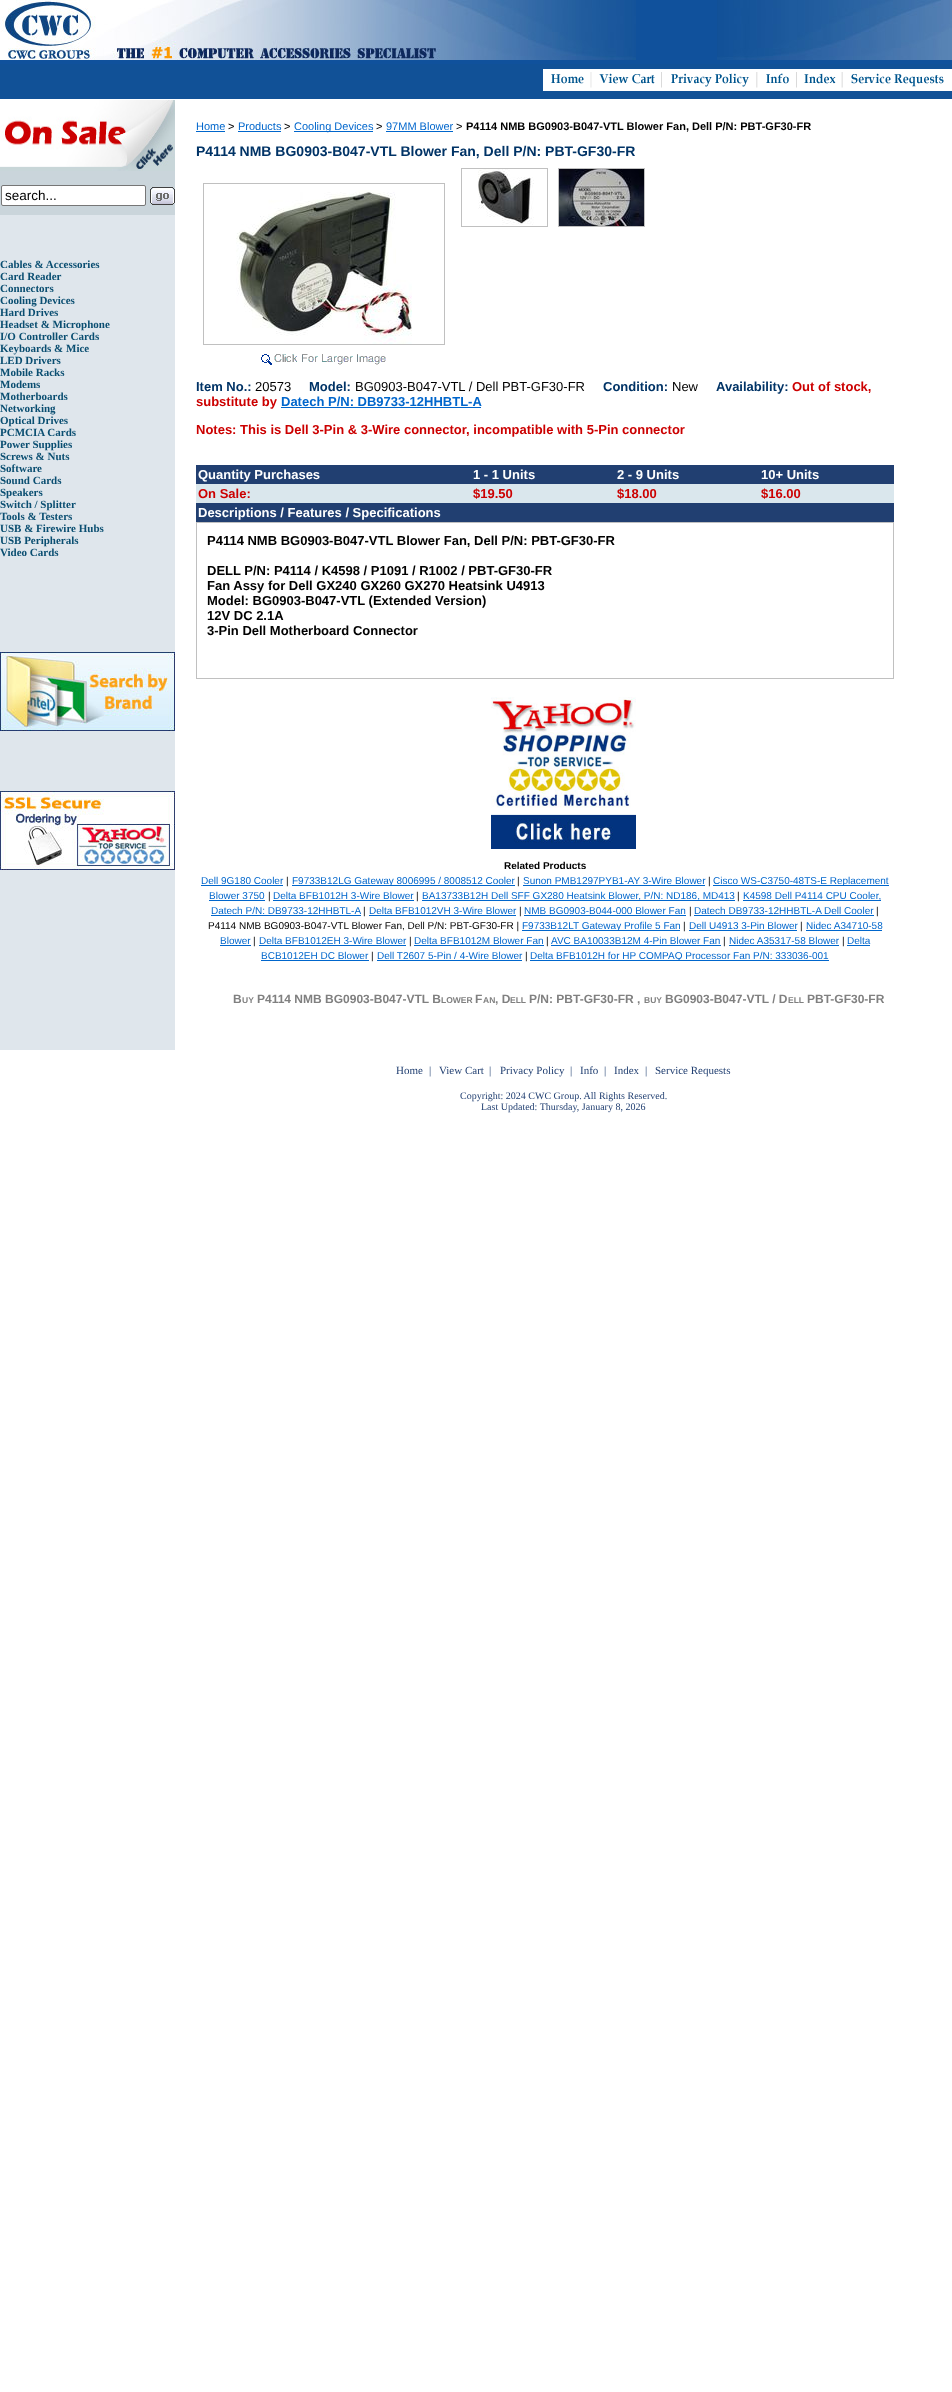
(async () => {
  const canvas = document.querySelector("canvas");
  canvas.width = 952;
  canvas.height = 2392;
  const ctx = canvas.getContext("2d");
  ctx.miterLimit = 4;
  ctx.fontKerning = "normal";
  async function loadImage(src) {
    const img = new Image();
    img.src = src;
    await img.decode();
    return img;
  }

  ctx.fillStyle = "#ffffff";
  ctx.fillRect(0, 0, 952, 2392);
  ctx.fillStyle = "#115197";
  ctx.fillRect(0, 64, 952, 35);
  ctx.fillStyle = "#10519c";
  ctx.fillRect(0, 0, 952, 64);
  ctx.drawImage(await loadImage("img/1.png"), 0, 0, 636, 60);
  ctx.drawImage(await loadImage("img/2.png"), 717, 0, 235, 60);
  ctx.drawImage(await loadImage("img/3.png"), 543, 69, 49, 22);
  ctx.drawImage(await loadImage("img/4.png"), 592, 69, 70, 22);
  ctx.drawImage(await loadImage("img/5.png"), 662, 69, 96, 22);
  ctx.drawImage(await loadImage("img/6.png"), 758, 69, 39, 22);
  ctx.drawImage(await loadImage("img/7.png"), 797, 69, 46, 22);
  ctx.drawImage(await loadImage("img/8.png"), 843, 69, 109, 22);
  ctx.fillStyle = "#cad5db";
  ctx.fillRect(0, 171, 175, 44);
  ctx.drawImage(await loadImage("img/9.png"), 0, 100, 175, 71);
  ctx.fillStyle = "#ffffff";
  ctx.beginPath();
  ctx.roundRect(1.5, 185.5, 144, 20, 1.5);
  ctx.fill();
  ctx.strokeStyle = "#767676";
  ctx.stroke();
  ctx.drawImage(await loadImage("img/10.png"), 150, 187, 25, 18);
  ctx.fillStyle = "#dfe6ec";
  ctx.fillRect(0, 215, 175, 835);
  ctx.drawImage(await loadImage("img/11.png"), 0, 652, 175, 79);
  ctx.drawImage(await loadImage("img/12.png"), 0, 791, 175, 79);
  for (const [x, y, w, h, color] of [
    [196, 131, 29, 1, "#0066cc"],
    [238, 131, 43, 1, "#0066cc"],
    [294, 131, 79, 1, "#0066cc"],
    [386, 131, 67, 1, "#0066cc"],
  ]) {
    ctx.fillStyle = color;
    ctx.fillRect(x, y, w, h);
  }
  ctx.strokeStyle = "#c0c0c0";
  ctx.strokeRect(203.5, 183.5, 241, 161);
  ctx.drawImage(await loadImage("img/13.png"), 236, 190, 176, 154);
  ctx.drawImage(await loadImage("img/14.png"), 261, 354, 125, 11);
  ctx.strokeRect(461.5, 168.5, 86, 58);
  ctx.drawImage(await loadImage("img/15.png"), 478, 169, 56, 56);
  ctx.strokeRect(558.5, 168.5, 86, 58);
  ctx.drawImage(await loadImage("img/16.png"), 559, 169, 85, 57);
  for (const [x, y, w, h, color] of [
    [281, 407, 200, 1, "#0066cc"],
    [196, 465, 698, 19, "#213f71"],
    [196, 484, 698, 19, "#dae7ed"],
    [196, 503, 698, 19, "#213f71"],
  ]) {
    ctx.fillStyle = color;
    ctx.fillRect(x, y, w, h);
  }
  ctx.strokeRect(196.5, 522.5, 697, 156);
  ctx.drawImage(await loadImage("img/17.png"), 491, 697, 145, 152);
  for (const [x, y, w, h, color] of [
    [201, 885, 82, 1, "#0066cc"],
    [292, 885, 223, 1, "#0066cc"],
    [523, 885, 182, 1, "#0066cc"],
    [713, 885, 176, 1, "#0066cc"],
    [209, 900, 56, 1, "#0066cc"],
    [273, 900, 141, 1, "#0066cc"],
    [422, 900, 313, 1, "#0066cc"],
    [743, 900, 138, 1, "#0066cc"],
    [211, 915, 150, 1, "#0066cc"],
    [369, 915, 147, 1, "#0066cc"],
    [524, 915, 162, 1, "#0066cc"],
    [694, 915, 180, 1, "#0066cc"],
    [522, 930, 158, 1, "#0066cc"],
    [689, 930, 108, 1, "#0066cc"],
    [806, 930, 76, 1, "#0066cc"],
    [220, 945, 31, 1, "#0066cc"],
    [259, 945, 147, 1, "#0066cc"],
    [414, 945, 130, 1, "#0066cc"],
    [551, 945, 170, 1, "#0066cc"],
    [729, 945, 110, 1, "#0066cc"],
    [847, 945, 23, 1, "#0066cc"],
    [261, 960, 108, 1, "#0066cc"],
    [377, 960, 145, 1, "#0066cc"],
    [530, 960, 299, 1, "#0066cc"],
  ]) {
    ctx.fillStyle = color;
    ctx.fillRect(x, y, w, h);
  }
  ctx.font = "13.5px Liberation Sans";
  ctx.fillStyle = "#000000";
  ctx.fillText("search...", 5, 200);
  ctx.font = "bold 11px Liberation Serif";
  ctx.fillStyle = "#0a4e71";
  for (const [text, x, y] of [
    ["Cables & Accessories", 0, 268],
    ["Card Reader", 0, 280],
    ["Connectors", 0, 292],
    ["Cooling Devices", 0, 304],
    ["Hard Drives", 0, 316],
    ["Headset & Microphone", 0, 328],
    ["I/O Controller Cards", 0, 340],
    ["Keyboards & Mice", 0, 352],
    ["LED Drivers", 0, 364],
    ["Mobile Racks", 0, 376],
    ["Modems", 0, 388],
    ["Motherboards", 0, 400],
    ["Networking", 0, 412],
    ["Optical Drives", 0, 424],
    ["PCMCIA Cards", 0, 436],
    ["Power Supplies", 0, 448],
    ["Screws & Nuts", 0, 460],
    ["Software", 0, 472],
    ["Sound Cards", 0, 484],
    ["Speakers", 0, 496],
    ["Switch / Splitter", 0, 508],
    ["Tools & Testers", 0, 520],
    ["USB & Firewire Hubs", 0, 532],
    ["USB Peripherals", 0, 544],
    ["Video Cards", 0, 556],
  ]) {
    ctx.fillText(text, x, y);
  }
  ctx.font = "11px Liberation Sans";
  ctx.fillStyle = "#0066cc";
  ctx.fillText("Home", 196, 130);
  ctx.fillStyle = "#000000";
  ctx.fillText(">", 228, 130);
  ctx.fillStyle = "#0066cc";
  ctx.fillText("Products", 238, 130);
  ctx.fillStyle = "#000000";
  ctx.fillText(">", 284, 130);
  ctx.fillStyle = "#0066cc";
  ctx.fillText("Cooling Devices", 294, 130);
  ctx.fillStyle = "#000000";
  ctx.fillText(">", 376, 130);
  ctx.fillStyle = "#0066cc";
  ctx.fillText("97MM Blower", 386, 130);
  ctx.fillStyle = "#000000";
  ctx.fillText(">", 456, 130);
  ctx.font = "bold 11px Liberation Sans";
  ctx.fillText("P4114 NMB BG0903-B047-VTL Blower Fan, Dell P/N: PBT-GF30-FR", 466, 130);
  ctx.font = "bold 14px Liberation Sans";
  ctx.fillStyle = "#003366";
  ctx.fillText("P4114 NMB BG0903-B047-VTL Blower Fan, Dell P/N: PBT-GF30-FR", 196, 156);
  ctx.font = "bold 13px Liberation Sans";
  ctx.fillText("Item No.:", 196, 391);
  ctx.font = "13px Liberation Sans";
  ctx.fillStyle = "#000000";
  ctx.fillText("20573", 255, 391);
  ctx.font = "bold 13px Liberation Sans";
  ctx.fillStyle = "#003366";
  ctx.fillText("Model:", 309, 391);
  ctx.font = "13px Liberation Sans";
  ctx.fillStyle = "#000000";
  ctx.fillText("BG0903-B047-VTL / Dell PBT-GF30-FR", 355, 391);
  ctx.font = "bold 13px Liberation Sans";
  ctx.fillStyle = "#003366";
  ctx.fillText("Condition:", 603, 391);
  ctx.font = "13px Liberation Sans";
  ctx.fillStyle = "#000000";
  ctx.fillText("New", 672, 391);
  ctx.font = "bold 13px Liberation Sans";
  ctx.fillStyle = "#003366";
  ctx.fillText("Availability:", 716, 391);
  ctx.fillStyle = "#cc0000";
  ctx.fillText("Out of stock,", 792, 391);
  ctx.fillText("substitute by", 196, 406);
  ctx.fillStyle = "#0066cc";
  ctx.fillText("Datech P/N: DB9733-12HHBTL-A", 281, 406);
  ctx.fillStyle = "#cc0000";
  ctx.fillText("Notes: This is Dell 3-Pin & 3-Wire connector, incompatible with 5-Pin connector", 196, 434);
  ctx.fillStyle = "#ffffff";
  for (const [text, x, y] of [
    ["Quantity Purchases", 198, 479],
    ["1 - 1 Units", 473, 479],
    ["2 - 9 Units", 617, 479],
    ["10+ Units", 761, 479],
  ]) {
    ctx.fillText(text, x, y);
  }
  ctx.fillStyle = "#cc0000";
  for (const [text, x, y] of [
    ["On Sale:", 198, 498],
    ["$19.50", 473, 498],
    ["$18.00", 617, 498],
    ["$16.00", 761, 498],
  ]) {
    ctx.fillText(text, x, y);
  }
  ctx.fillStyle = "#ffffff";
  ctx.fillText("Descriptions / Features / Specifications", 198, 517);
  ctx.fillStyle = "#000000";
  for (const [text, x, y] of [
    ["P4114 NMB BG0903-B047-VTL Blower Fan, Dell P/N: PBT-GF30-FR", 207, 545],
    ["DELL P/N: P4114 / K4598 / P1091 / R1002 / PBT-GF30-FR", 207, 575],
    ["Fan Assy for Dell GX240 GX260 GX270 Heatsink U4913", 207, 590],
    ["Model: BG0903-B047-VTL (Extended Version)", 207, 605],
    ["12V DC 2.1A", 207, 620],
    ["3-Pin Dell Motherboard Connector", 207, 635],
  ]) {
    ctx.fillText(text, x, y);
  }
  ctx.font = "bold 10px Liberation Sans";
  ctx.fillText("Related Products", 504, 869);
  ctx.font = "10px Liberation Sans";
  ctx.fillStyle = "#0066cc";
  ctx.fillText("Dell 9G180 Cooler", 201, 884);
  ctx.fillStyle = "#000000";
  ctx.fillText("|", 286, 884);
  ctx.fillStyle = "#0066cc";
  ctx.fillText("F9733B12LG Gateway 8006995 / 8008512 Cooler", 292, 884);
  ctx.fillStyle = "#000000";
  ctx.fillText("|", 517, 884);
  ctx.fillStyle = "#0066cc";
  ctx.fillText("Sunon PMB1297PYB1-AY 3-Wire Blower", 523, 884);
  ctx.fillStyle = "#000000";
  ctx.fillText("|", 708, 884);
  ctx.fillStyle = "#0066cc";
  ctx.fillText("Cisco WS-C3750-48TS-E Replacement", 713, 884);
  ctx.fillText("Blower 3750", 209, 899);
  ctx.fillStyle = "#000000";
  ctx.fillText("|", 268, 899);
  ctx.fillStyle = "#0066cc";
  ctx.fillText("Delta BFB1012H 3-Wire Blower", 273, 899);
  ctx.fillStyle = "#000000";
  ctx.fillText("|", 416, 899);
  ctx.fillStyle = "#0066cc";
  ctx.fillText("BA13733B12H Dell SFF GX280 Heatsink Blower, P/N: ND186, MD413", 422, 899);
  ctx.fillStyle = "#000000";
  ctx.fillText("|", 737, 899);
  ctx.fillStyle = "#0066cc";
  ctx.fillText("K4598 Dell P4114 CPU Cooler,", 743, 899);
  ctx.fillText("Datech P/N: DB9733-12HHBTL-A", 211, 914);
  ctx.fillStyle = "#000000";
  ctx.fillText("|", 363, 914);
  ctx.fillStyle = "#0066cc";
  ctx.fillText("Delta BFB1012VH 3-Wire Blower", 369, 914);
  ctx.fillStyle = "#000000";
  ctx.fillText("|", 519, 914);
  ctx.fillStyle = "#0066cc";
  ctx.fillText("NMB BG0903-B044-000 Blower Fan", 524, 914);
  ctx.fillStyle = "#000000";
  ctx.fillText("|", 689, 914);
  ctx.fillStyle = "#0066cc";
  ctx.fillText("Datech DB9733-12HHBTL-A Dell Cooler", 694, 914);
  ctx.fillStyle = "#000000";
  ctx.fillText("|", 876, 914);
  ctx.fillText("P4114 NMB BG0903-B047-VTL Blower Fan, Dell P/N: PBT-GF30-FR |", 208, 929);
  ctx.fillStyle = "#0066cc";
  ctx.fillText("F9733B12LT Gateway Profile 5 Fan", 522, 929);
  ctx.fillStyle = "#000000";
  ctx.fillText("|", 683, 929);
  ctx.fillStyle = "#0066cc";
  ctx.fillText("Dell U4913 3-Pin Blower", 689, 929);
  ctx.fillStyle = "#000000";
  ctx.fillText("|", 800, 929);
  ctx.fillStyle = "#0066cc";
  ctx.fillText("Nidec A34710-58", 806, 929);
  ctx.fillText("Blower", 220, 944);
  ctx.fillStyle = "#000000";
  ctx.fillText("|", 253, 944);
  ctx.fillStyle = "#0066cc";
  ctx.fillText("Delta BFB1012EH 3-Wire Blower", 259, 944);
  ctx.fillStyle = "#000000";
  ctx.fillText("|", 409, 944);
  ctx.fillStyle = "#0066cc";
  ctx.fillText("Delta BFB1012M Blower Fan", 414, 944);
  ctx.fillStyle = "#000000";
  ctx.fillText("|", 546, 944);
  ctx.fillStyle = "#0066cc";
  ctx.fillText("AVC BA10033B12M 4-Pin Blower Fan", 551, 944);
  ctx.fillStyle = "#000000";
  ctx.fillText("|", 723, 944);
  ctx.fillStyle = "#0066cc";
  ctx.fillText("Nidec A35317-58 Blower", 729, 944);
  ctx.fillStyle = "#000000";
  ctx.fillText("|", 842, 944);
  ctx.fillStyle = "#0066cc";
  ctx.fillText("Delta", 847, 944);
  ctx.fillText("BCB1012EH DC Blower", 261, 959);
  ctx.fillStyle = "#000000";
  ctx.fillText("|", 371, 959);
  ctx.fillStyle = "#0066cc";
  ctx.fillText("Dell T2607 5-Pin / 4-Wire Blower", 377, 959);
  ctx.fillStyle = "#000000";
  ctx.fillText("|", 525, 959);
  ctx.fillStyle = "#0066cc";
  ctx.fillText("Delta BFB1012H for HP COMPAQ Processor Fan P/N: 333036-001", 530, 959);
  ctx.font = "bold 12px Liberation Sans";
  ctx.fillStyle = "#808080";
  ctx.fillText("B", 233, 1003);
  ctx.font = "bold 8.5px Liberation Sans";
  ctx.fillText("UY", 242, 1003);
  ctx.font = "bold 12px Liberation Sans";
  ctx.fillText("P4114 NMB BG0903-B047-VTL B", 257, 1003);
  ctx.font = "bold 8.5px Liberation Sans";
  ctx.fillText("LOWER", 441, 1003);
  ctx.font = "bold 12px Liberation Sans";
  ctx.fillText("F", 475, 1003);
  ctx.font = "bold 8.5px Liberation Sans";
  ctx.fillText("AN", 483, 1003);
  ctx.font = "bold 12px Liberation Sans";
  ctx.fillText(", D", 495, 1003);
  ctx.font = "bold 8.5px Liberation Sans";
  ctx.fillText("ELL", 510, 1003);
  ctx.font = "bold 12px Liberation Sans";
  ctx.fillText("P/N: PBT-GF30-FR ,", 529, 1003);
  ctx.font = "bold 8.5px Liberation Sans";
  ctx.fillText("BUY", 644, 1003);
  ctx.font = "bold 12px Liberation Sans";
  ctx.fillText("BG0903-B047-VTL / D", 665, 1003);
  ctx.font = "bold 8.5px Liberation Sans";
  ctx.fillText("ELL", 788, 1003);
  ctx.font = "bold 12px Liberation Sans";
  ctx.fillText("PBT-GF30-FR", 807, 1003);
  ctx.font = "11px Liberation Serif";
  ctx.fillStyle = "#213f71";
  for (const [text, x, y] of [
    ["Home", 396, 1074],
    ["|", 429, 1074],
    ["View Cart", 439, 1074],
    ["|", 489, 1074],
    ["Privacy Policy", 500, 1074],
    ["|", 570, 1074],
    ["Info", 580, 1074],
    ["|", 604, 1074],
    ["Index", 614, 1074],
    ["|", 645, 1074],
    ["Service Requests", 655, 1074],
  ]) {
    ctx.fillText(text, x, y);
  }
  ctx.font = "10px Liberation Serif";
  ctx.fillText("Copyright: 2024 CWC Group. All Rights Reserved.", 460, 1099);
  ctx.fillText("Last Updated: Thursday, January 8, 2026", 481, 1110);
})();
